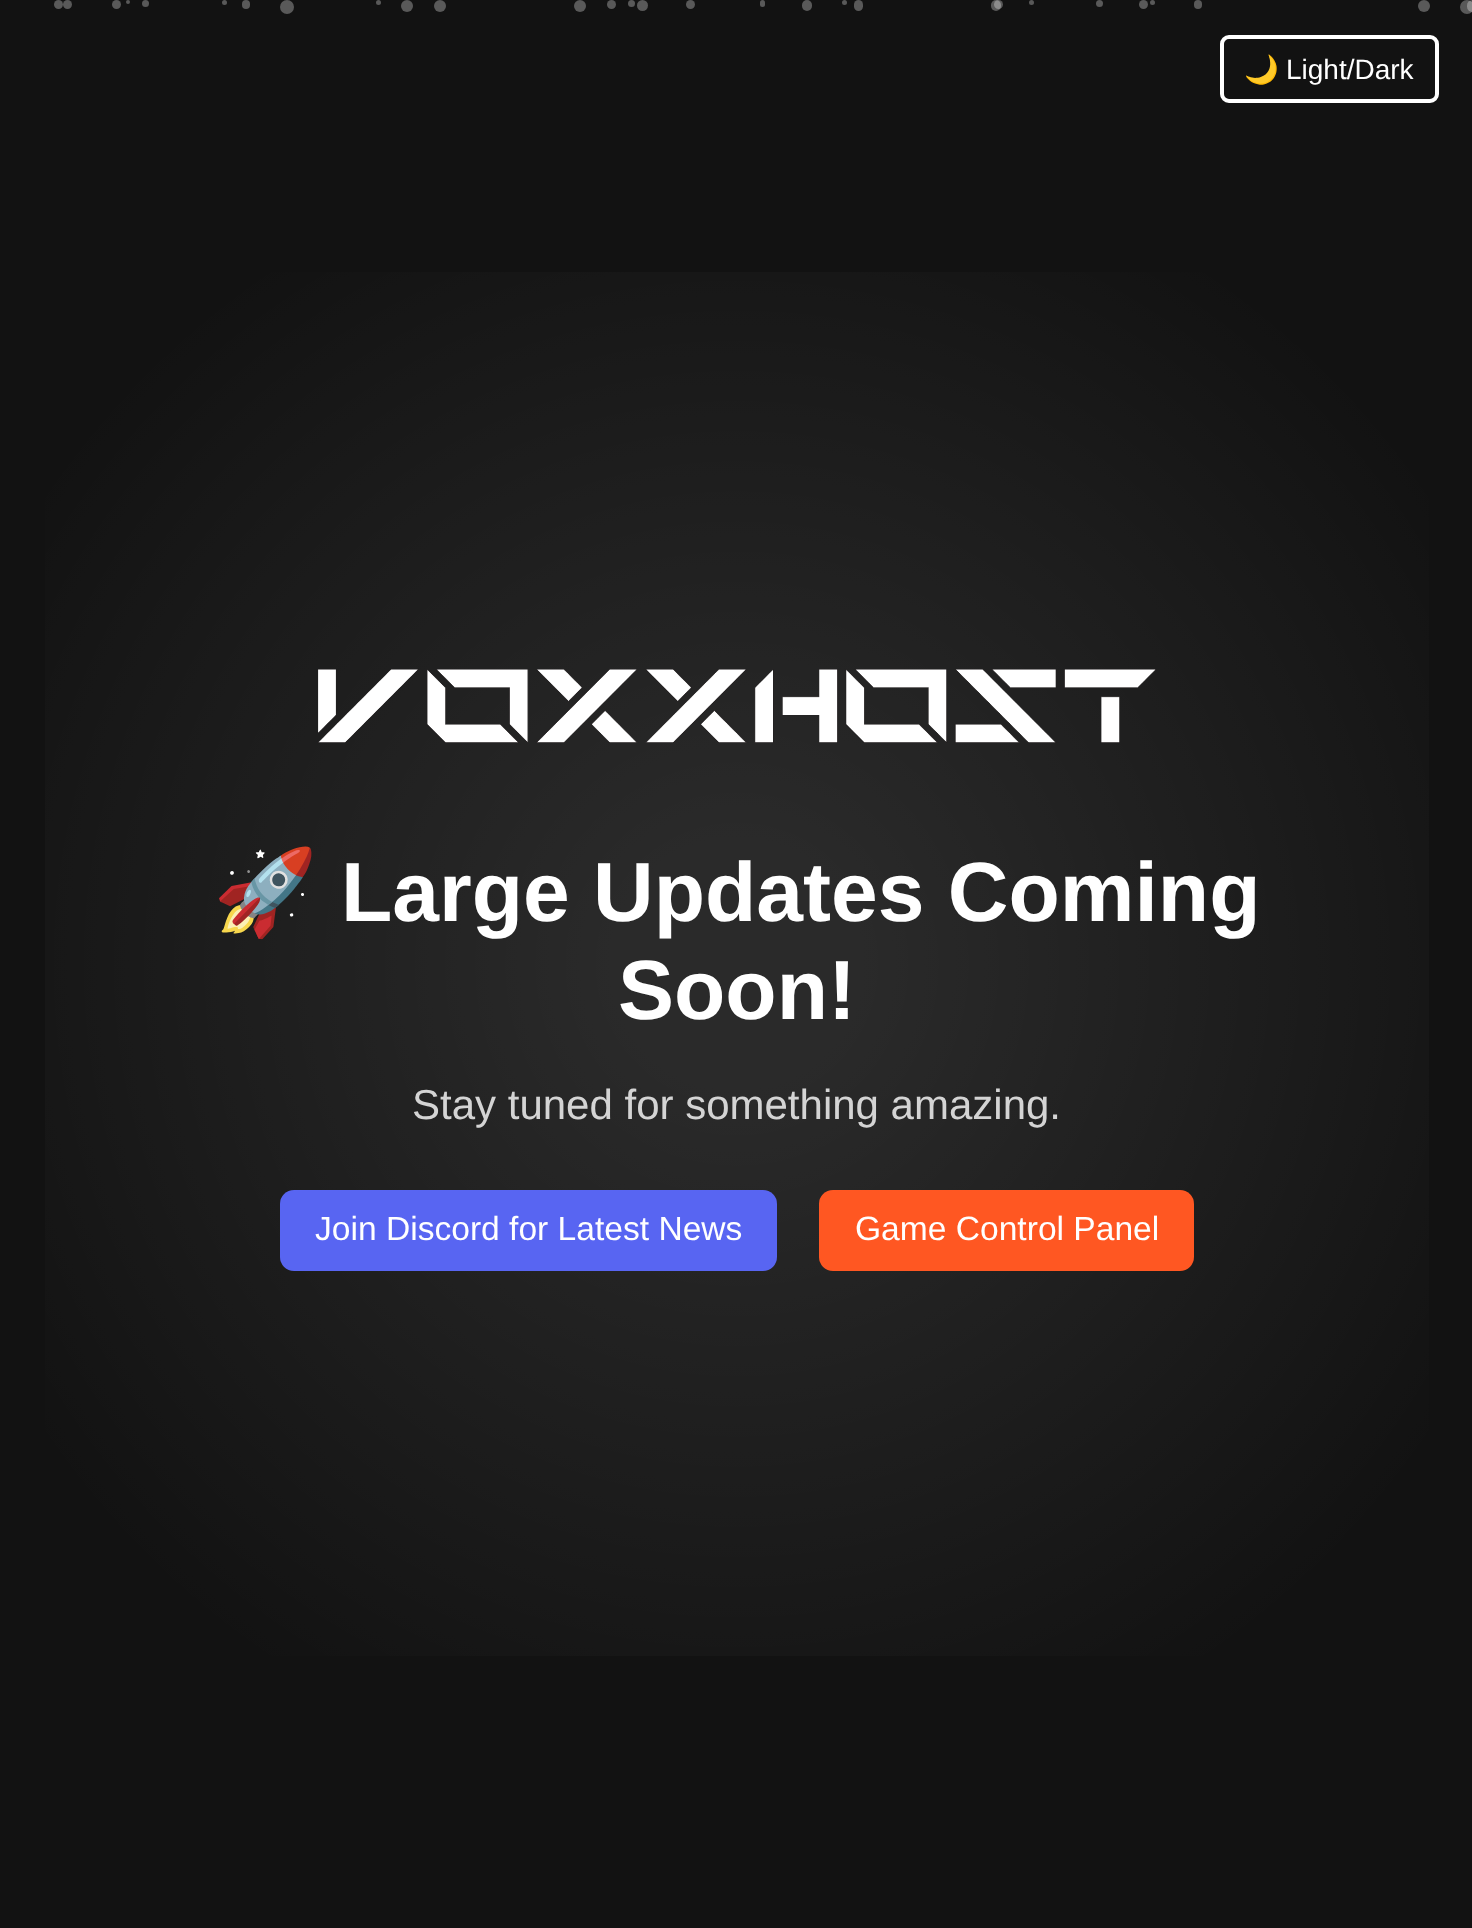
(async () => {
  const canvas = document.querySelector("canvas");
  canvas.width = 1472;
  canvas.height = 1928;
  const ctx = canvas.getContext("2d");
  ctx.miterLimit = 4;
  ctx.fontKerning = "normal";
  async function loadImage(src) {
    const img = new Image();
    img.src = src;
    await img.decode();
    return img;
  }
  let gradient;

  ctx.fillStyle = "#121212";
  ctx.fillRect(0, 0, 1472, 1928);
  gradient = ctx.createRadialGradient(737, 964, 0, 737, 964, 1213);
  gradient.addColorStop(0.1, "rgba(255, 255, 255, 0.1)");
  gradient.addColorStop(0.7, "rgba(255, 255, 255, 0)");
  ctx.fillStyle = gradient;
  ctx.fillRect(45, 272, 1384, 1384);
  ctx.fillStyle = "#595959";
  ctx.beginPath();
  ctx.arc(58.5, 4.5, 4.5, 0, Math.PI * 2);
  ctx.fill();
  ctx.beginPath();
  ctx.arc(67.5, 4.5, 4.5, 0, Math.PI * 2);
  ctx.fill();
  ctx.beginPath();
  ctx.arc(116.5, 4.5, 4.5, 0, Math.PI * 2);
  ctx.fill();
  ctx.beginPath();
  ctx.arc(128, 2, 2, 0, Math.PI * 2);
  ctx.fill();
  ctx.beginPath();
  ctx.arc(145.5, 3.5, 3.5, 0, Math.PI * 2);
  ctx.fill();
  ctx.beginPath();
  ctx.arc(224.5, 2.5, 2.5, 0, Math.PI * 2);
  ctx.fill();
  ctx.beginPath();
  ctx.roundRect(242, 0, 8, 9, 4);
  ctx.fill();
  ctx.beginPath();
  ctx.arc(287, 7, 7, 0, Math.PI * 2);
  ctx.fill();
  ctx.beginPath();
  ctx.arc(378.5, 2.5, 2.5, 0, Math.PI * 2);
  ctx.fill();
  ctx.beginPath();
  ctx.arc(407, 6, 6, 0, Math.PI * 2);
  ctx.fill();
  ctx.beginPath();
  ctx.arc(440, 6, 6, 0, Math.PI * 2);
  ctx.fill();
  ctx.beginPath();
  ctx.arc(580, 6, 6, 0, Math.PI * 2);
  ctx.fill();
  ctx.beginPath();
  ctx.arc(611.5, 4.5, 4.5, 0, Math.PI * 2);
  ctx.fill();
  ctx.beginPath();
  ctx.arc(631.5, 3.5, 3.5, 0, Math.PI * 2);
  ctx.fill();
  ctx.beginPath();
  ctx.arc(642.5, 5.5, 5.5, 0, Math.PI * 2);
  ctx.fill();
  ctx.beginPath();
  ctx.arc(690.5, 4.5, 4.5, 0, Math.PI * 2);
  ctx.fill();
  ctx.beginPath();
  ctx.roundRect(760, 0, 5, 7, 2.5);
  ctx.fill();
  ctx.beginPath();
  ctx.roundRect(802, 0, 10, 11, 5);
  ctx.fill();
  ctx.beginPath();
  ctx.arc(844.5, 2.5, 2.5, 0, Math.PI * 2);
  ctx.fill();
  ctx.beginPath();
  ctx.roundRect(854, 0, 9, 11, 4.5);
  ctx.fill();
  ctx.beginPath();
  ctx.arc(998.5, 4.5, 4.5, 0, Math.PI * 2);
  ctx.fill();
  ctx.fillStyle = "rgba(255, 255, 255, 0.3)";
  ctx.beginPath();
  ctx.roundRect(991, 0, 10, 11, 5);
  ctx.fill();
  ctx.fillStyle = "#595959";
  ctx.beginPath();
  ctx.arc(1031.5, 2.5, 2.5, 0, Math.PI * 2);
  ctx.fill();
  ctx.beginPath();
  ctx.arc(1099.5, 3.5, 3.5, 0, Math.PI * 2);
  ctx.fill();
  ctx.beginPath();
  ctx.arc(1143.5, 4.5, 4.5, 0, Math.PI * 2);
  ctx.fill();
  ctx.beginPath();
  ctx.arc(1152.5, 2.5, 2.5, 0, Math.PI * 2);
  ctx.fill();
  ctx.beginPath();
  ctx.roundRect(1194, 0, 8, 9, 4);
  ctx.fill();
  ctx.beginPath();
  ctx.arc(1424, 6, 6, 0, Math.PI * 2);
  ctx.fill();
  ctx.beginPath();
  ctx.roundRect(1467, 0, 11, 12, 6);
  ctx.fill();
  ctx.fillStyle = "rgba(255, 255, 255, 0.3)";
  ctx.beginPath();
  ctx.arc(1467, 7, 7, 0, Math.PI * 2);
  ctx.fill();
  ctx.beginPath();
  ctx.roundRect(1222, 37, 215, 64, 7);
  ctx.strokeStyle = "#ffffff";
  ctx.lineWidth = 4;
  ctx.stroke();
  ctx.drawImage(await loadImage("img/1.png"), 318, 669, 838, 74);
  ctx.fillStyle = "#5865f2";
  ctx.beginPath();
  ctx.roundRect(280, 1190, 497, 81, 14);
  ctx.fill();
  ctx.fillStyle = "#ff5722";
  ctx.beginPath();
  ctx.roundRect(819, 1190, 375, 81, 14);
  ctx.fill();
  ctx.font = "28px Noto Color Emoji";
  ctx.fillStyle = "#ffffff";
  ctx.fillText("🌙", 1244, 79);
  ctx.font = "28px Liberation Sans";
  ctx.fillText("Light/Dark", 1286, 79);
  ctx.font = "bold 84px Noto Color Emoji";
  ctx.fillText("🚀", 213, 921);
  ctx.font = "bold 84px Liberation Sans";
  ctx.fillText("Large Updates Coming", 341, 921);
  ctx.fillText("Soon!", 618, 1019);
  ctx.font = "42px Liberation Sans";
  ctx.fillStyle = "#d4d4d4";
  ctx.fillText("Stay tuned for something amazing.", 412, 1119);
  ctx.font = "33.6px Liberation Sans";
  ctx.fillStyle = "#ffffff";
  ctx.fillText("Join Discord for Latest News", 315, 1240);
  ctx.fillText("Game Control Panel", 855, 1240);
})();
